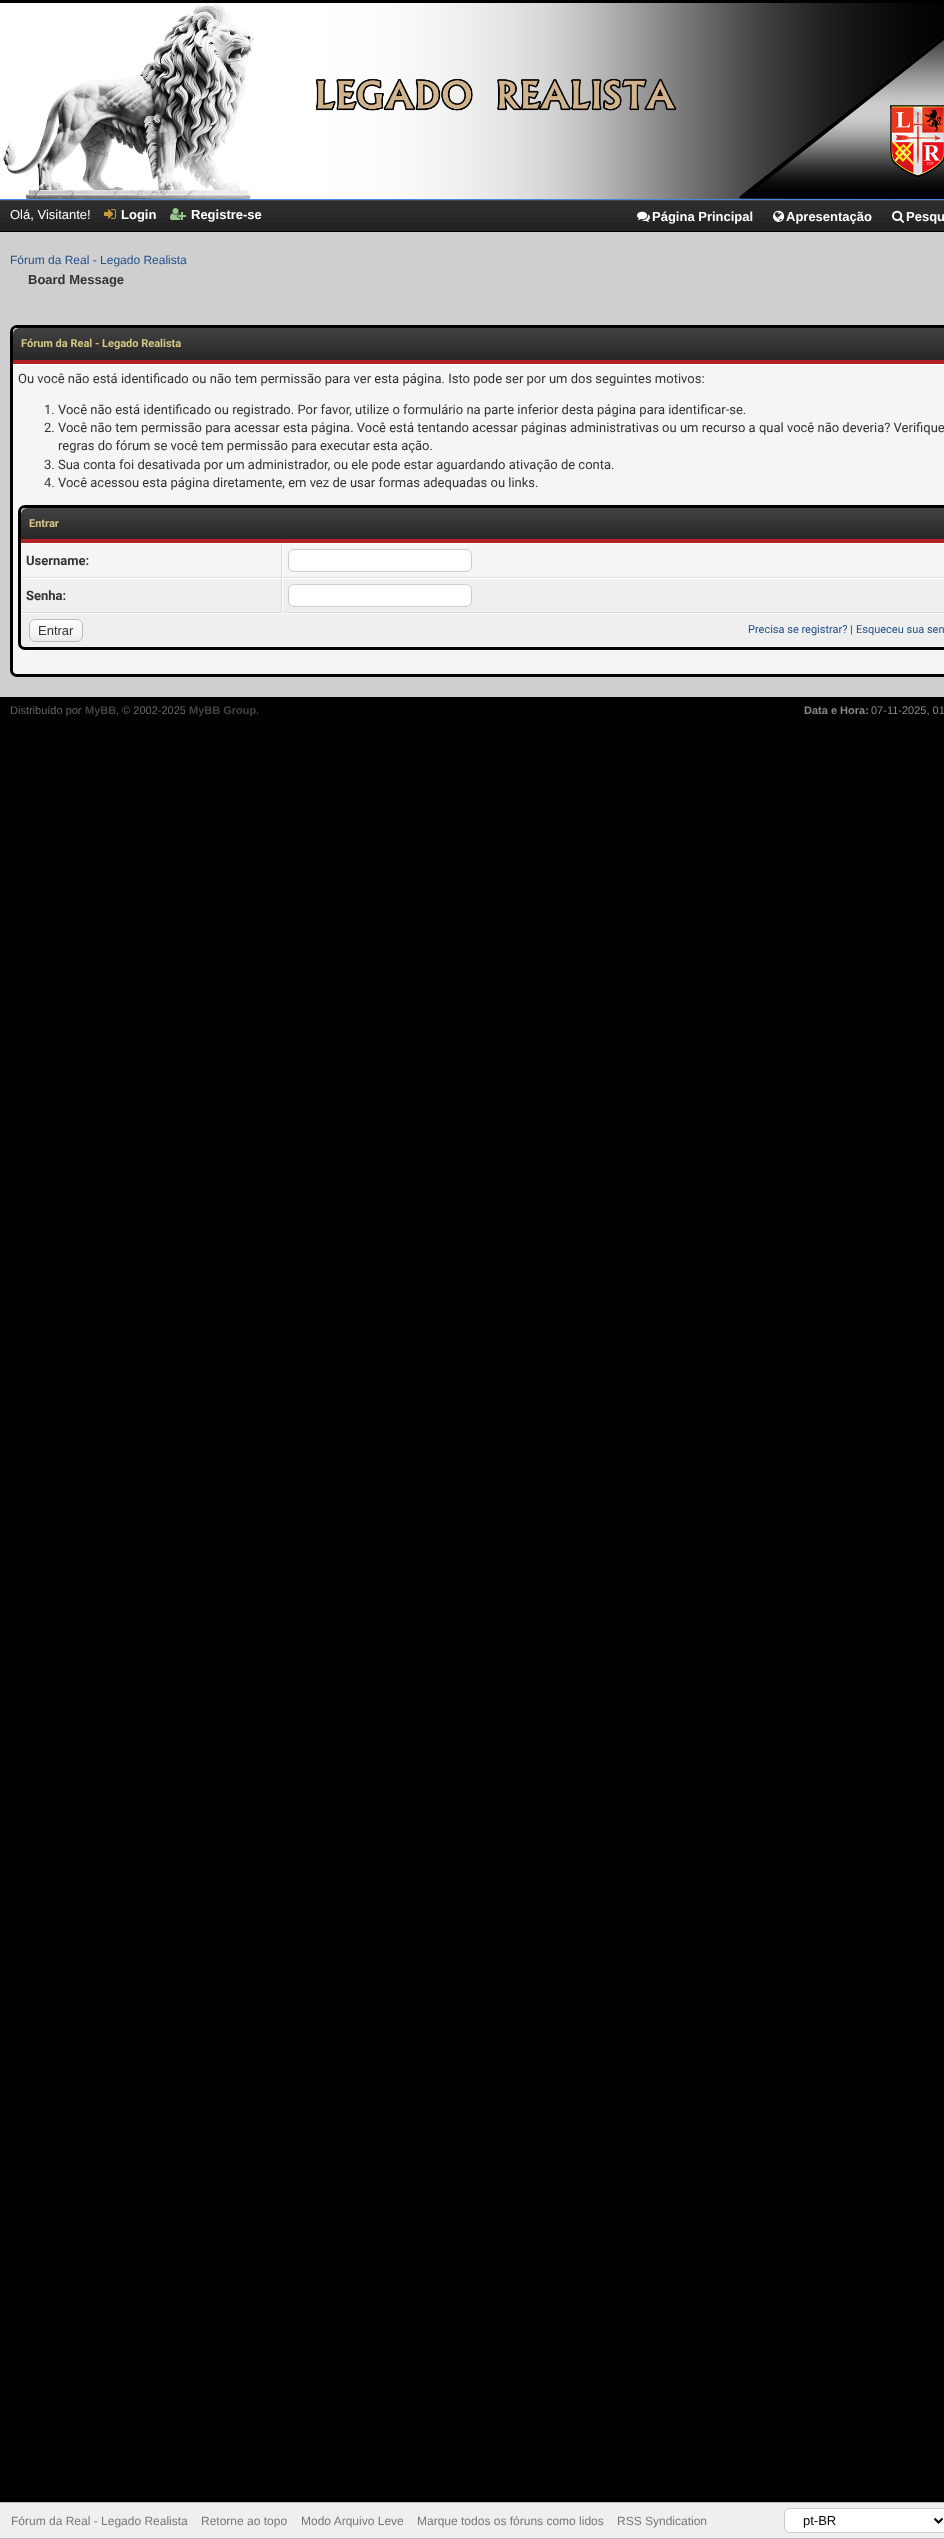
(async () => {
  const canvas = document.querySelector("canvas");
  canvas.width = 944;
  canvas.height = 2539;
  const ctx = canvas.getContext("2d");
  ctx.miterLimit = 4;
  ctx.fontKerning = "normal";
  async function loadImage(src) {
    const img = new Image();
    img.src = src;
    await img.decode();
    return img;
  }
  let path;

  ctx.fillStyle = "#000000";
  ctx.fillRect(0, 0, 944, 2539);
  ctx.fillStyle = "#4986e7";
  ctx.fillRect(0, 199, 944, 1);
  ctx.drawImage(await loadImage("img/1.png"), 0, 3, 944, 196);
  ctx.drawImage(await loadImage("img/2.png"), 0, 201, 944, 30);
  ctx.fillStyle = "#444444";
  ctx.fillRect(0, 200, 944, 1);
  ctx.drawImage(await loadImage("img/3.png"), 104, 209, 12, 10);
  ctx.drawImage(await loadImage("img/4.png"), 170, 208, 16, 12);
  ctx.drawImage(await loadImage("img/5.png"), 637, 211, 13, 11);
  ctx.drawImage(await loadImage("img/6.png"), 773, 210, 12, 12);
  ctx.drawImage(await loadImage("img/7.png"), 892, 210, 12, 13);
  ctx.fillStyle = "#cfcfcf";
  ctx.fillRect(0, 232, 944, 465);
  ctx.fillStyle = "#ffffff";
  ctx.beginPath();
  ctx.roundRect(11.5, 326.5, 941, 349, 5.5);
  ctx.fill();
  ctx.strokeStyle = "#000000";
  ctx.lineWidth = 3;
  ctx.stroke();
  ctx.drawImage(await loadImage("img/8.png"), 13, 328, 931, 32);
  ctx.fillStyle = "#b22222";
  ctx.fillRect(13, 360, 931, 4);
  ctx.fillStyle = "#f5f5f5";
  path = new Path2D("M13 364H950V668C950 671.5 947.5 674 944 674H19C15.5 674 13 671.5 13 668Z");
  ctx.fill(path);
  ctx.fillStyle = "#ffffff";
  ctx.fillRect(13, 364, 931, 1);
  ctx.beginPath();
  ctx.roundRect(19.5, 506.5, 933, 142, 5.5);
  ctx.fill();
  ctx.stroke();
  ctx.drawImage(await loadImage("img/9.png"), 21, 508, 923, 31);
  for (const [x, y, w, h, color] of [
    [21, 539, 923, 4, "#b22222"],
    [21, 544, 260, 33, "#f5f5f5"],
    [281, 543, 1, 70, "#dddddd"],
    [21, 577, 923, 1, "#dddddd"],
    [283, 544, 661, 33, "#f5f5f5"],
    [282, 577, 1, 1, "#ffffff"],
  ]) {
    ctx.fillStyle = color;
    ctx.fillRect(x, y, w, h);
  }
  ctx.beginPath();
  ctx.roundRect(288.5, 549.5, 183, 22, 5.5);
  ctx.fill();
  ctx.strokeStyle = "#cccccc";
  ctx.lineWidth = 1;
  ctx.stroke();
  for (const [x, y, w, h, color] of [
    [21, 579, 260, 33, "#efefef"],
    [21, 612, 923, 1, "#dddddd"],
    [283, 579, 661, 33, "#efefef"],
    [282, 612, 1, 1, "#ffffff"],
  ]) {
    ctx.fillStyle = color;
    ctx.fillRect(x, y, w, h);
  }
  ctx.beginPath();
  ctx.roundRect(288.5, 584.5, 183, 22, 5.5);
  ctx.fill();
  ctx.stroke();
  ctx.fillStyle = "#efefef";
  path = new Path2D("M21 613H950V641C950 644.5 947.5 647 944 647H27C23.5 647 21 644.5 21 641Z");
  ctx.fill(path);
  ctx.fillStyle = "#ffffff";
  ctx.fillRect(21, 613, 923, 1);
  ctx.drawImage(await loadImage("img/10.png"), 29, 620, 54, 21);
  ctx.beginPath();
  ctx.roundRect(29.5, 619.5, 53, 22, 5.5);
  ctx.strokeStyle = "#bbbbbb";
  ctx.stroke();
  for (const [x, y, w, h, color] of [
    [0, 2503, 944, 35, "#efefef"],
    [0, 2502, 944, 1, "#bbbbbb"],
    [0, 2538, 944, 1, "#bbbbbb"],
  ]) {
    ctx.fillStyle = color;
    ctx.fillRect(x, y, w, h);
  }
  ctx.fillStyle = "#ffffff";
  ctx.beginPath();
  ctx.roundRect(784.5, 2508.5, 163, 24, 5.5);
  ctx.fill();
  ctx.strokeStyle = "#cccccc";
  ctx.stroke();
  path = new Path2D("M934.5 2518.5L938.5 2522.5L942.5 2518.5");
  ctx.strokeStyle = "#000000";
  ctx.lineWidth = 2;
  ctx.stroke(path);
  ctx.font = "13px Liberation Sans";
  ctx.fillText("Olá, Visitante!", 10, 219);
  ctx.font = "bold 13px Liberation Sans";
  for (const [text, x, y] of [
    ["Login", 121, 219],
    ["Registre-se", 191, 219],
    ["Página Principal", 652, 221],
    ["Apresentação", 786, 221],
    ["Pesqu", 906, 221],
  ]) {
    ctx.fillText(text, x, y);
  }
  ctx.font = "12px Liberation Sans";
  ctx.fillStyle = "#25518a";
  ctx.fillText("Fórum da Real - Legado Realista", 10, 264);
  ctx.font = "bold 13px Liberation Sans";
  ctx.fillStyle = "#333333";
  ctx.fillText("Board Message", 28, 284);
  ctx.font = "bold 11px Roboto";
  ctx.fillStyle = "#d6c786";
  ctx.fillText("Fórum da Real - Legado Realista", 21, 347);
  ctx.font = "13px Roboto";
  ctx.fillStyle = "#333333";
  for (const [text, x, y] of [
    ["Ou você não está identificado ou não tem permissão para ver esta página. Isto pode ser por um dos seguintes motivos:", 18, 383],
    ["1. Você não está identificado ou registrado. Por favor, utilize o formulário na parte inferior desta página para identificar-se.", 44, 414],
    ["2. Você não tem permissão para acessar esta página. Você está tentando acessar páginas administrativas ou um recurso a qual você não deveria? Verifique", 44, 432],
    ["regras do fórum se você tem permissão para executar esta ação.", 58, 450],
    ["3. Sua conta foi desativada por um administrador, ou ele pode estar aguardando ativação de conta.", 44, 469],
    ["4. Você acessou esta página diretamente, em vez de usar formas adequadas ou links.", 44, 487],
  ]) {
    ctx.fillText(text, x, y);
  }
  ctx.font = "bold 11px Roboto";
  ctx.fillStyle = "#d6c786";
  ctx.fillText("Entrar", 29, 527);
  ctx.font = "bold 13px Roboto";
  ctx.fillStyle = "#333333";
  ctx.fillText("Username:", 26, 565);
  ctx.fillText("Senha:", 26, 600);
  ctx.font = "13px Liberation Sans";
  ctx.fillText("Entrar", 38, 635);
  ctx.font = "11px Roboto";
  ctx.fillStyle = "#25518a";
  ctx.fillText("Precisa se registrar?", 748, 633);
  ctx.fillStyle = "#333333";
  ctx.fillText("|", 850, 633);
  ctx.fillStyle = "#25518a";
  ctx.fillText("Esqueceu sua sen", 856, 633);
  ctx.font = "11px Liberation Sans";
  ctx.fillStyle = "#666666";
  ctx.fillText("Distribuído por", 10, 714);
  ctx.font = "bold 11px Liberation Sans";
  ctx.fillStyle = "#444444";
  ctx.fillText("MyBB", 85, 714);
  ctx.font = "11px Liberation Sans";
  ctx.fillStyle = "#666666";
  ctx.fillText(", © 2002-2025", 116, 714);
  ctx.font = "bold 11px Liberation Sans";
  ctx.fillStyle = "#444444";
  ctx.fillText("MyBB Group", 189, 714);
  ctx.font = "11px Liberation Sans";
  ctx.fillStyle = "#666666";
  ctx.fillText(".", 256, 714);
  ctx.font = "bold 11px Liberation Sans";
  ctx.fillStyle = "#888888";
  ctx.fillText("Data e Hora:", 804, 714);
  ctx.font = "11px Liberation Sans";
  ctx.fillText("07-11-2025, 01", 871, 714);
  ctx.font = "12px Liberation Sans";
  ctx.fillStyle = "#777777";
  for (const [text, x, y] of [
    ["Fórum da Real - Legado Realista", 11, 2525],
    ["Retorne ao topo", 201, 2525],
    ["Modo Arquivo Leve", 301, 2525],
    ["Marque todos os fóruns como lidos", 417, 2525],
    ["RSS Syndication", 617, 2525],
  ]) {
    ctx.fillText(text, x, y);
  }
  ctx.font = "13px Liberation Sans";
  ctx.fillStyle = "#000000";
  ctx.fillText("pt-BR", 803, 2525);
})();
